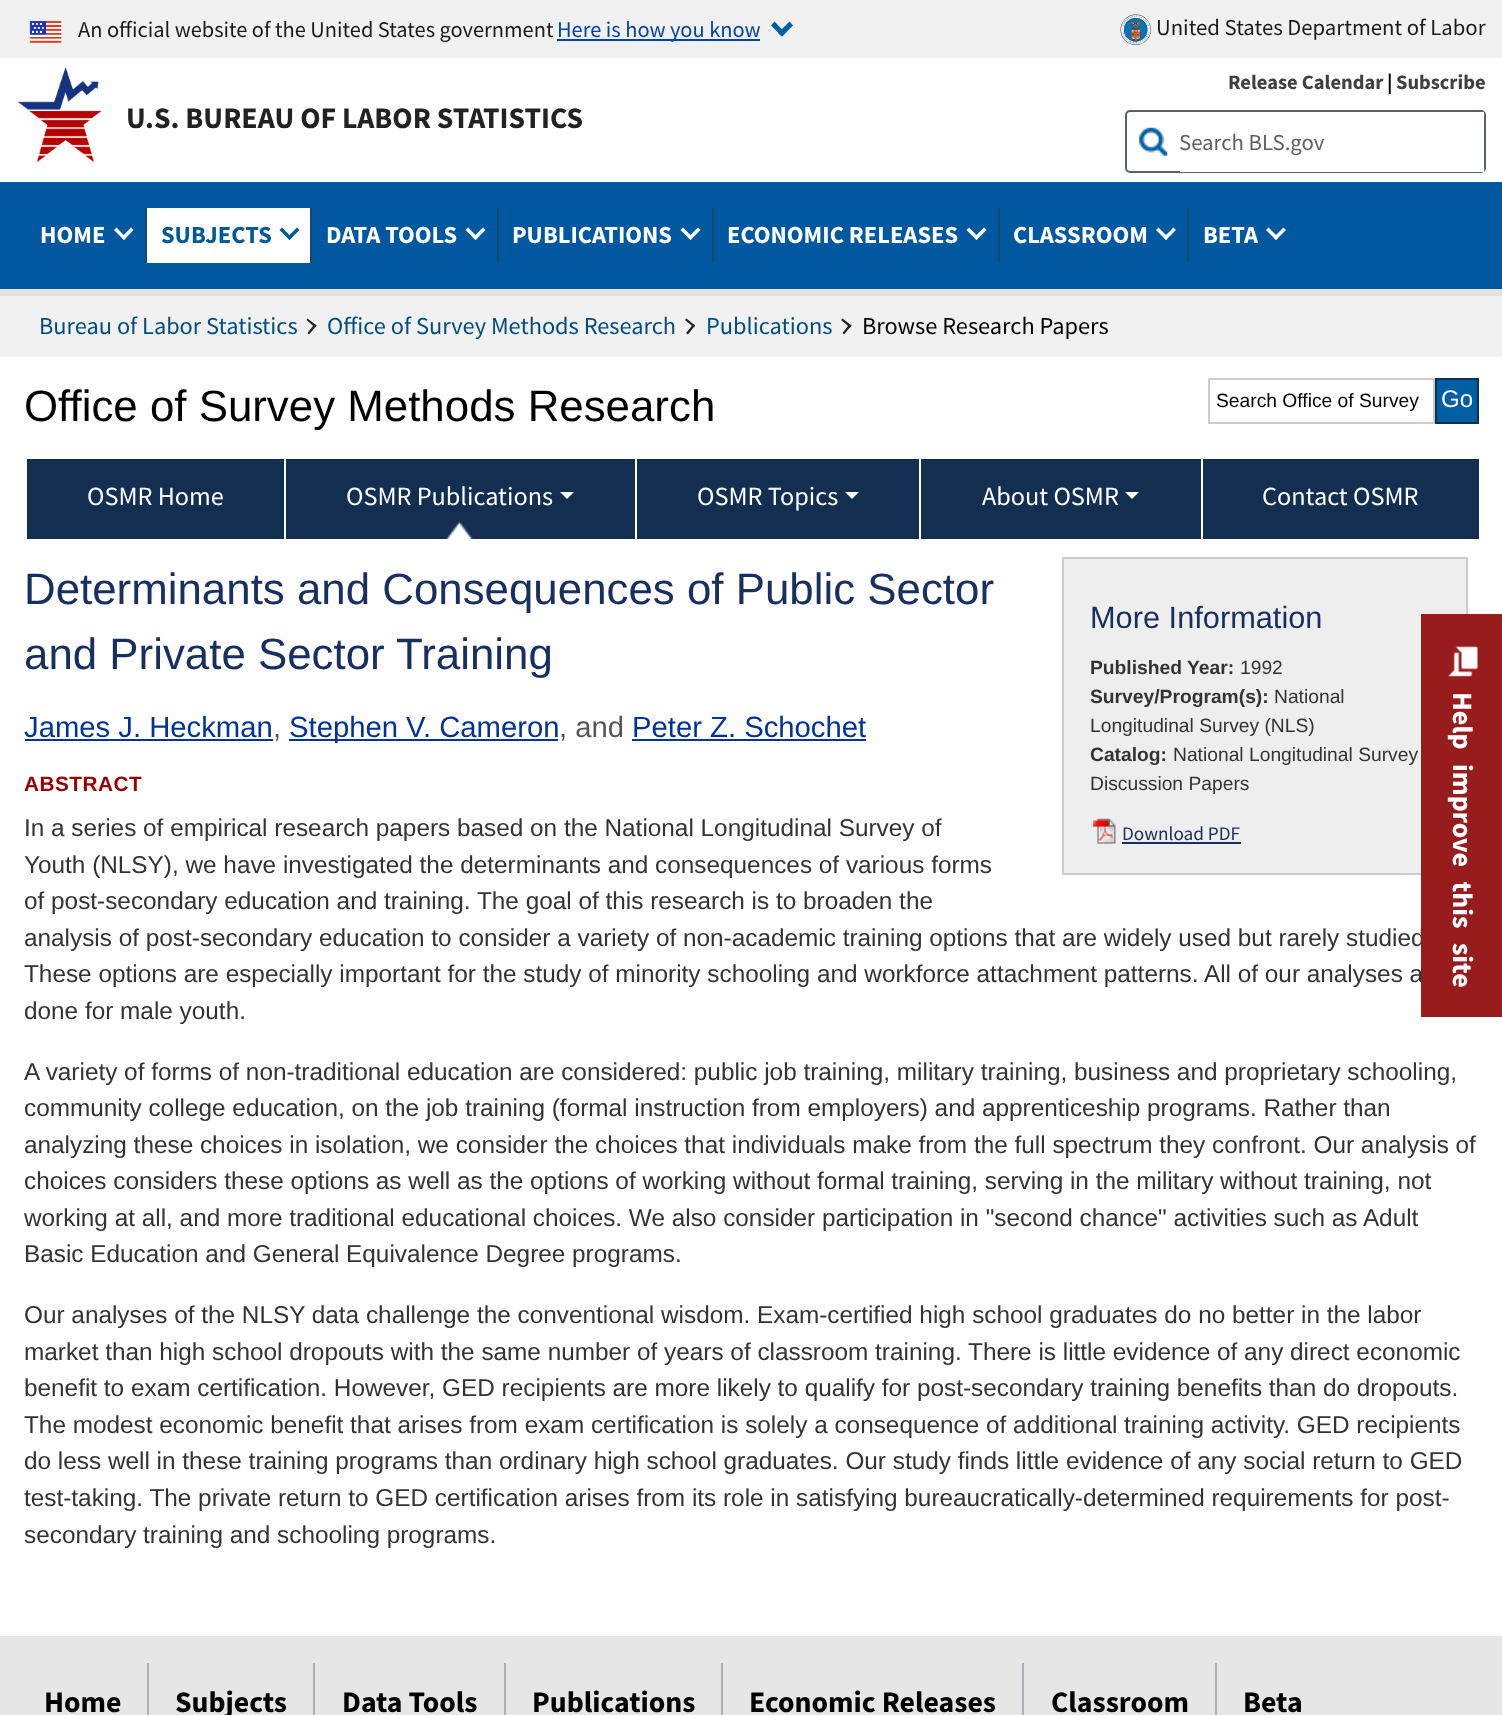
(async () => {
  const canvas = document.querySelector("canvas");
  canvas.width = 1502;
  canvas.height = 1715;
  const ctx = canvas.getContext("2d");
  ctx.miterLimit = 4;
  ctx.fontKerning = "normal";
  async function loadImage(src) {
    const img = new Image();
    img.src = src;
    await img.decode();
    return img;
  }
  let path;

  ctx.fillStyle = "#ffffff";
  ctx.fillRect(0, 0, 1502, 1715);
  ctx.fillStyle = "#f1f1f1";
  ctx.fillRect(0, 0, 1502, 58);
  ctx.drawImage(await loadImage("img/1.png"), 29, 20, 33, 23);
  ctx.fillStyle = "#0044aa";
  ctx.fillRect(557, 39, 203, 2);
  ctx.fillStyle = "#005ea2";
  path = new Path2D("M789.5 21.5L793 25.5L782 36.5L778 33Z");
  ctx.fill(path);
  path = new Path2D("M774.5 21.5L785.5 33L782 36.5L771 25.5Z");
  ctx.fill(path);
  ctx.drawImage(await loadImage("img/2.png"), 1120, 14, 31, 31);
  ctx.drawImage(await loadImage("img/3.png"), 17, 66, 85, 96);
  ctx.beginPath();
  ctx.roundRect(1126, 111, 359, 61, 4);
  ctx.strokeStyle = "#5b616b";
  ctx.lineWidth = 2;
  ctx.stroke();
  ctx.drawImage(await loadImage("img/4.png"), 1139, 127, 29, 29);
  for (const [x, y, w, h, color] of [
    [1180, 112, 304, 60, "#ffffff"],
    [0, 182, 1502, 107, "#0059a0"],
    [0, 289, 1502, 7, "#e2e2e2"],
    [145, 208, 2, 55, "#164869"],
  ]) {
    ctx.fillStyle = color;
    ctx.fillRect(x, y, w, h);
  }
  ctx.fillStyle = "#ffffff";
  path = new Path2D("M131 227.5L133.5 230L124 240L121.5 237.5Z");
  ctx.fill(path);
  path = new Path2D("M116.5 227.5L126 237.5L124 240L114 230Z");
  ctx.fill(path);
  ctx.fillRect(147, 208, 163, 55);
  ctx.fillStyle = "#164869";
  ctx.fillRect(310, 208, 2, 55);
  ctx.fillStyle = "#005a96";
  path = new Path2D("M297 227.5L299.5 230L289.5 240L287 237.5Z");
  ctx.fill(path);
  path = new Path2D("M282 227.5L292 237.5L289.5 240L279.5 230Z");
  ctx.fill(path);
  ctx.fillStyle = "#164869";
  ctx.fillRect(497, 208, 2, 55);
  ctx.fillStyle = "#ffffff";
  path = new Path2D("M483 227.5L485.5 230L475.5 240L473 237.5Z");
  ctx.fill(path);
  path = new Path2D("M468 227.5L478 237.5L475.5 240L465.5 230Z");
  ctx.fill(path);
  ctx.fillStyle = "#164869";
  ctx.fillRect(712, 208, 2, 55);
  ctx.fillStyle = "#ffffff";
  path = new Path2D("M698 227.5L700.5 230L690.5 240L688 237.5Z");
  ctx.fill(path);
  path = new Path2D("M683 227.5L693 237.5L690.5 240L680.5 230Z");
  ctx.fill(path);
  ctx.fillStyle = "#164869";
  ctx.fillRect(998, 208, 2, 55);
  ctx.fillStyle = "#ffffff";
  path = new Path2D("M984 227.5L986.5 230L976.5 240L974 237.5Z");
  ctx.fill(path);
  path = new Path2D("M969 227.5L979 237.5L976.5 240L966.5 230Z");
  ctx.fill(path);
  ctx.fillStyle = "#164869";
  ctx.fillRect(1187, 208, 2, 55);
  ctx.fillStyle = "#ffffff";
  path = new Path2D("M1173.5 227.5L1176 230L1166 240L1163.5 237.5Z");
  ctx.fill(path);
  path = new Path2D("M1158.5 227.5L1168.5 237.5L1166 240L1156 230Z");
  ctx.fill(path);
  path = new Path2D("M1283.5 227.5L1286 230L1276 240L1273.5 237.5Z");
  ctx.fill(path);
  path = new Path2D("M1268.5 227.5L1278.5 237.5L1276 240L1266 230Z");
  ctx.fill(path);
  ctx.fillStyle = "#f1f1f1";
  ctx.fillRect(0, 296, 1502, 61);
  ctx.fillStyle = "#222222";
  path = new Path2D("M306.5 320L307.5 318.5L316.5 325.5L315 327.5Z");
  ctx.fill(path);
  path = new Path2D("M307.5 333L314.5 324L316.5 325.5L309 334.5Z");
  ctx.fill(path);
  path = new Path2D("M685 320L686.5 318.5L695 325.5L694 327.5Z");
  ctx.fill(path);
  path = new Path2D("M686 333L693.5 324L695 325.5L688 334.5Z");
  ctx.fill(path);
  path = new Path2D("M841 320L842.5 318.5L851.5 325.5L850 327.5Z");
  ctx.fill(path);
  path = new Path2D("M842.5 333L849.5 324L851.5 325.5L844 334.5Z");
  ctx.fill(path);
  ctx.strokeStyle = "#cccccc";
  ctx.strokeRect(1209, 379, 225, 44);
  ctx.fillStyle = "#005ea2";
  ctx.beginPath();
  ctx.rect(1436, 379, 42, 44);
  ctx.fill();
  ctx.strokeStyle = "#122f51";
  ctx.stroke();
  ctx.fillStyle = "#122f51";
  ctx.fillRect(27, 459, 257, 80);
  ctx.fillRect(286, 459, 349, 80);
  ctx.drawImage(await loadImage("img/5.png"), 446, 521, 27, 18);
  ctx.fillStyle = "#ffffff";
  path = new Path2D("M560 492H574L567 499Z");
  ctx.fill(path);
  ctx.fillStyle = "#122f51";
  ctx.fillRect(637, 459, 282, 80);
  ctx.fillStyle = "#ffffff";
  path = new Path2D("M845 492H859L852 499Z");
  ctx.fill(path);
  ctx.fillStyle = "#122f51";
  ctx.fillRect(921, 459, 280, 80);
  ctx.fillStyle = "#ffffff";
  path = new Path2D("M1125 492H1139L1132 499Z");
  ctx.fill(path);
  for (const [x, y, w, h, color] of [
    [1203, 459, 276, 80, "#122f51"],
    [25, 739, 248, 2, "#003399"],
    [289, 739, 269, 2, "#003399"],
    [632, 739, 234, 2, "#003399"],
  ]) {
    ctx.fillStyle = color;
    ctx.fillRect(x, y, w, h);
  }
  ctx.fillStyle = "#eeeeee";
  ctx.beginPath();
  ctx.rect(1063, 558, 404, 316);
  ctx.fill();
  ctx.strokeStyle = "#cccccc";
  ctx.stroke();
  ctx.drawImage(await loadImage("img/6.png"), 1092, 818, 24, 26);
  for (const [x, y, w, h, color] of [
    [1122, 842, 119, 2, "#183061"],
    [0, 1636, 1502, 79, "#e6e6e6"],
    [147, 1663, 2, 52, "#aeb0b5"],
    [313, 1663, 2, 52, "#aeb0b5"],
    [504, 1663, 2, 52, "#aeb0b5"],
    [721, 1663, 2, 52, "#aeb0b5"],
    [1022, 1663, 2, 52, "#aeb0b5"],
    [1215, 1663, 2, 52, "#aeb0b5"],
  ]) {
    ctx.fillStyle = color;
    ctx.fillRect(x, y, w, h);
  }
  ctx.font = "22.4px Source Sans Pro";
  ctx.fillStyle = "#1b1b1b";
  ctx.fillText("An official website of the United States government", 78, 37);
  ctx.fillStyle = "#0044aa";
  ctx.fillText("Here is how you know", 557, 37);
  ctx.font = "22.75px Source Sans Pro";
  ctx.fillStyle = "#1b1b1b";
  ctx.fillText("United States Department of Labor", 1156, 35);
  ctx.font = "bold 29.75px Source Sans Pro";
  ctx.fillStyle = "#222222";
  ctx.fillText("U.S. BUREAU OF LABOR STATISTICS", 126, 128);
  ctx.font = "bold 20.5px Source Sans Pro";
  ctx.fillStyle = "#404040";
  ctx.fillText("Release Calendar", 1228, 89);
  ctx.fillStyle = "#000000";
  ctx.fillText("|", 1387, 89);
  ctx.fillStyle = "#404040";
  ctx.fillText("Subscribe", 1396, 89);
  ctx.font = "22.75px Source Sans Pro";
  ctx.fillStyle = "#5b616b";
  ctx.fillText("Search BLS.gov", 1179, 150);
  ctx.font = "bold 24.5px Source Sans Pro";
  ctx.fillStyle = "#ffffff";
  ctx.fillText("HOME", 40, 243);
  ctx.fillStyle = "#005a96";
  ctx.fillText("SUBJECTS", 161, 243);
  ctx.fillStyle = "#ffffff";
  for (const [text, x, y] of [
    ["DATA TOOLS", 326, 243],
    ["PUBLICATIONS", 512, 243],
    ["ECONOMIC RELEASES", 727, 243],
    ["CLASSROOM", 1013, 243],
    ["BETA", 1203, 243],
  ]) {
    ctx.fillText(text, x, y);
  }
  ctx.font = "24.35px Source Sans Pro";
  ctx.fillStyle = "#004d80";
  for (const [text, x, y] of [
    ["Bureau of Labor Statistics", 39, 334],
    ["Office of Survey Methods Research", 327, 334],
    ["Publications", 706, 334],
  ]) {
    ctx.fillText(text, x, y);
  }
  ctx.fillStyle = "#000000";
  ctx.fillText("Browse Research Papers", 862, 334);
  ctx.font = "43.85px Liberation Sans";
  ctx.fillText("Office of Survey Methods Research", 24, 421);
  ctx.font = "19.25px Liberation Sans";
  ctx.fillText("Search Office of Survey", 1216, 407);
  ctx.font = "24px Liberation Sans";
  ctx.fillStyle = "#ffffff";
  ctx.fillText("Go", 1441, 407);
  ctx.font = "26.25px Source Sans Pro";
  for (const [text, x, y] of [
    ["OSMR Home", 87, 505],
    ["OSMR Publications", 346, 505],
    ["OSMR Topics", 697, 505],
    ["About OSMR", 982, 505],
    ["Contact OSMR", 1262, 505],
  ]) {
    ctx.fillText(text, x, y);
  }
  ctx.font = "43.85px Liberation Sans";
  ctx.fillStyle = "#183061";
  ctx.fillText("Determinants and Consequences of Public Sector", 24, 604);
  ctx.fillText("and Private Sector Training", 24, 669);
  ctx.font = "29.25px Liberation Sans";
  ctx.fillStyle = "#003399";
  ctx.fillText("James J. Heckman", 24, 737);
  ctx.fillStyle = "#575757";
  ctx.fillText(",", 273, 737);
  ctx.fillStyle = "#003399";
  ctx.fillText("Stephen V. Cameron", 289, 737);
  ctx.fillStyle = "#575757";
  ctx.fillText(", and", 559, 737);
  ctx.fillStyle = "#003399";
  ctx.fillText("Peter Z. Schochet", 632, 737);
  ctx.letterSpacing = "0.5px";
  ctx.font = "bold 20.75px Liberation Sans";
  ctx.fillStyle = "#990000";
  ctx.fillText("ABSTRACT", 24, 791);
  ctx.letterSpacing = "0px";
  ctx.font = "24.35px Liberation Sans";
  ctx.fillStyle = "#333333";
  for (const [text, x, y] of [
    ["In a series of empirical research papers based on the National Longitudinal Survey of", 24, 836],
    ["Youth (NLSY), we have investigated the determinants and consequences of various forms", 24, 873],
    ["of post-secondary education and training. The goal of this research is to broaden the", 24, 909],
    ["analysis of post-secondary education to consider a variety of non-academic training options that are widely used but rarely studied", 24, 946],
    ["These options are especially important for the study of minority schooling and workforce attachment patterns. All of our analyses a", 24, 982],
    ["done for male youth.", 24, 1019],
    ["A variety of forms of non-traditional education are considered: public job training, military training, business and proprietary schooling,", 24, 1080],
    ["community college education, on the job training (formal instruction from employers) and apprenticeship programs. Rather than", 24, 1116],
    ["analyzing these choices in isolation, we consider the choices that individuals make from the full spectrum they confront. Our analysis of", 24, 1153],
    ["choices considers these options as well as the options of working without formal training, serving in the military without training, not", 24, 1189],
    ["working at all, and more traditional educational choices. We also consider participation in \"second chance\" activities such as Adult", 24, 1226],
    ["Basic Education and General Equivalence Degree programs.", 24, 1262],
    ["Our analyses of the NLSY data challenge the conventional wisdom. Exam-certified high school graduates do no better in the labor", 24, 1323],
    ["market than high school dropouts with the same number of years of classroom training. There is little evidence of any direct economic", 24, 1360],
    ["benefit to exam certification. However, GED recipients are more likely to qualify for post-secondary training benefits than do dropouts.", 24, 1396],
    ["The modest economic benefit that arises from exam certification is solely a consequence of additional training activity. GED recipients", 24, 1433],
    ["do less well in these training programs than ordinary high school graduates. Our study finds little evidence of any social return to GED", 24, 1469],
    ["test-taking. The private return to GED certification arises from its role in satisfying bureaucratically-determined requirements for post-", 24, 1506],
    ["secondary training and schooling programs.", 24, 1543],
  ]) {
    ctx.fillText(text, x, y);
  }
  ctx.font = "30.75px Liberation Sans";
  ctx.fillStyle = "#183061";
  ctx.fillText("More Information", 1090, 628);
  ctx.font = "bold 19.25px Liberation Sans";
  ctx.fillStyle = "#333333";
  ctx.fillText("Published Year:", 1090, 674);
  ctx.font = "19.25px Liberation Sans";
  ctx.fillText("1992", 1240, 674);
  ctx.font = "bold 19.25px Liberation Sans";
  ctx.fillText("Survey/Program(s):", 1090, 703);
  ctx.font = "19.25px Liberation Sans";
  ctx.fillText("National", 1274, 703);
  ctx.fillText("Longitudinal Survey (NLS)", 1090, 732);
  ctx.font = "bold 19.25px Liberation Sans";
  ctx.fillText("Catalog:", 1090, 761);
  ctx.font = "19.25px Liberation Sans";
  ctx.fillText("National Longitudinal Survey", 1173, 761);
  ctx.fillText("Discussion Papers", 1090, 790);
  ctx.font = "19.25px Source Sans Pro";
  ctx.fillStyle = "#183061";
  ctx.fillText("Download PDF", 1122, 840);
  ctx.fillStyle = "#981b1e";
  ctx.fillRect(1421, 614, 81, 403);
  ctx.drawImage(await loadImage("img/7.png"), 1448, 646, 30, 31);
  ctx.wordSpacing = "9px";
  ctx.font = "bold 28px Source Sans Pro";
  ctx.fillStyle = "#ffffff";
  ctx.save();
  ctx.translate(1453, 692);
  ctx.rotate(90 * Math.PI / 180);
  ctx.fillText("Help improve this site", 0, 0);
  ctx.restore();
  ctx.wordSpacing = "0px";
  ctx.font = "bold 29.75px Source Sans Pro";
  ctx.fillStyle = "#000000";
  for (const [text, x, y] of [
    ["Home", 44, 1712],
    ["Subjects", 175, 1712],
    ["Data Tools", 342, 1712],
    ["Publications", 532, 1712],
    ["Economic Releases", 749, 1712],
    ["Classroom", 1051, 1712],
    ["Beta", 1243, 1712],
  ]) {
    ctx.fillText(text, x, y);
  }
})();
